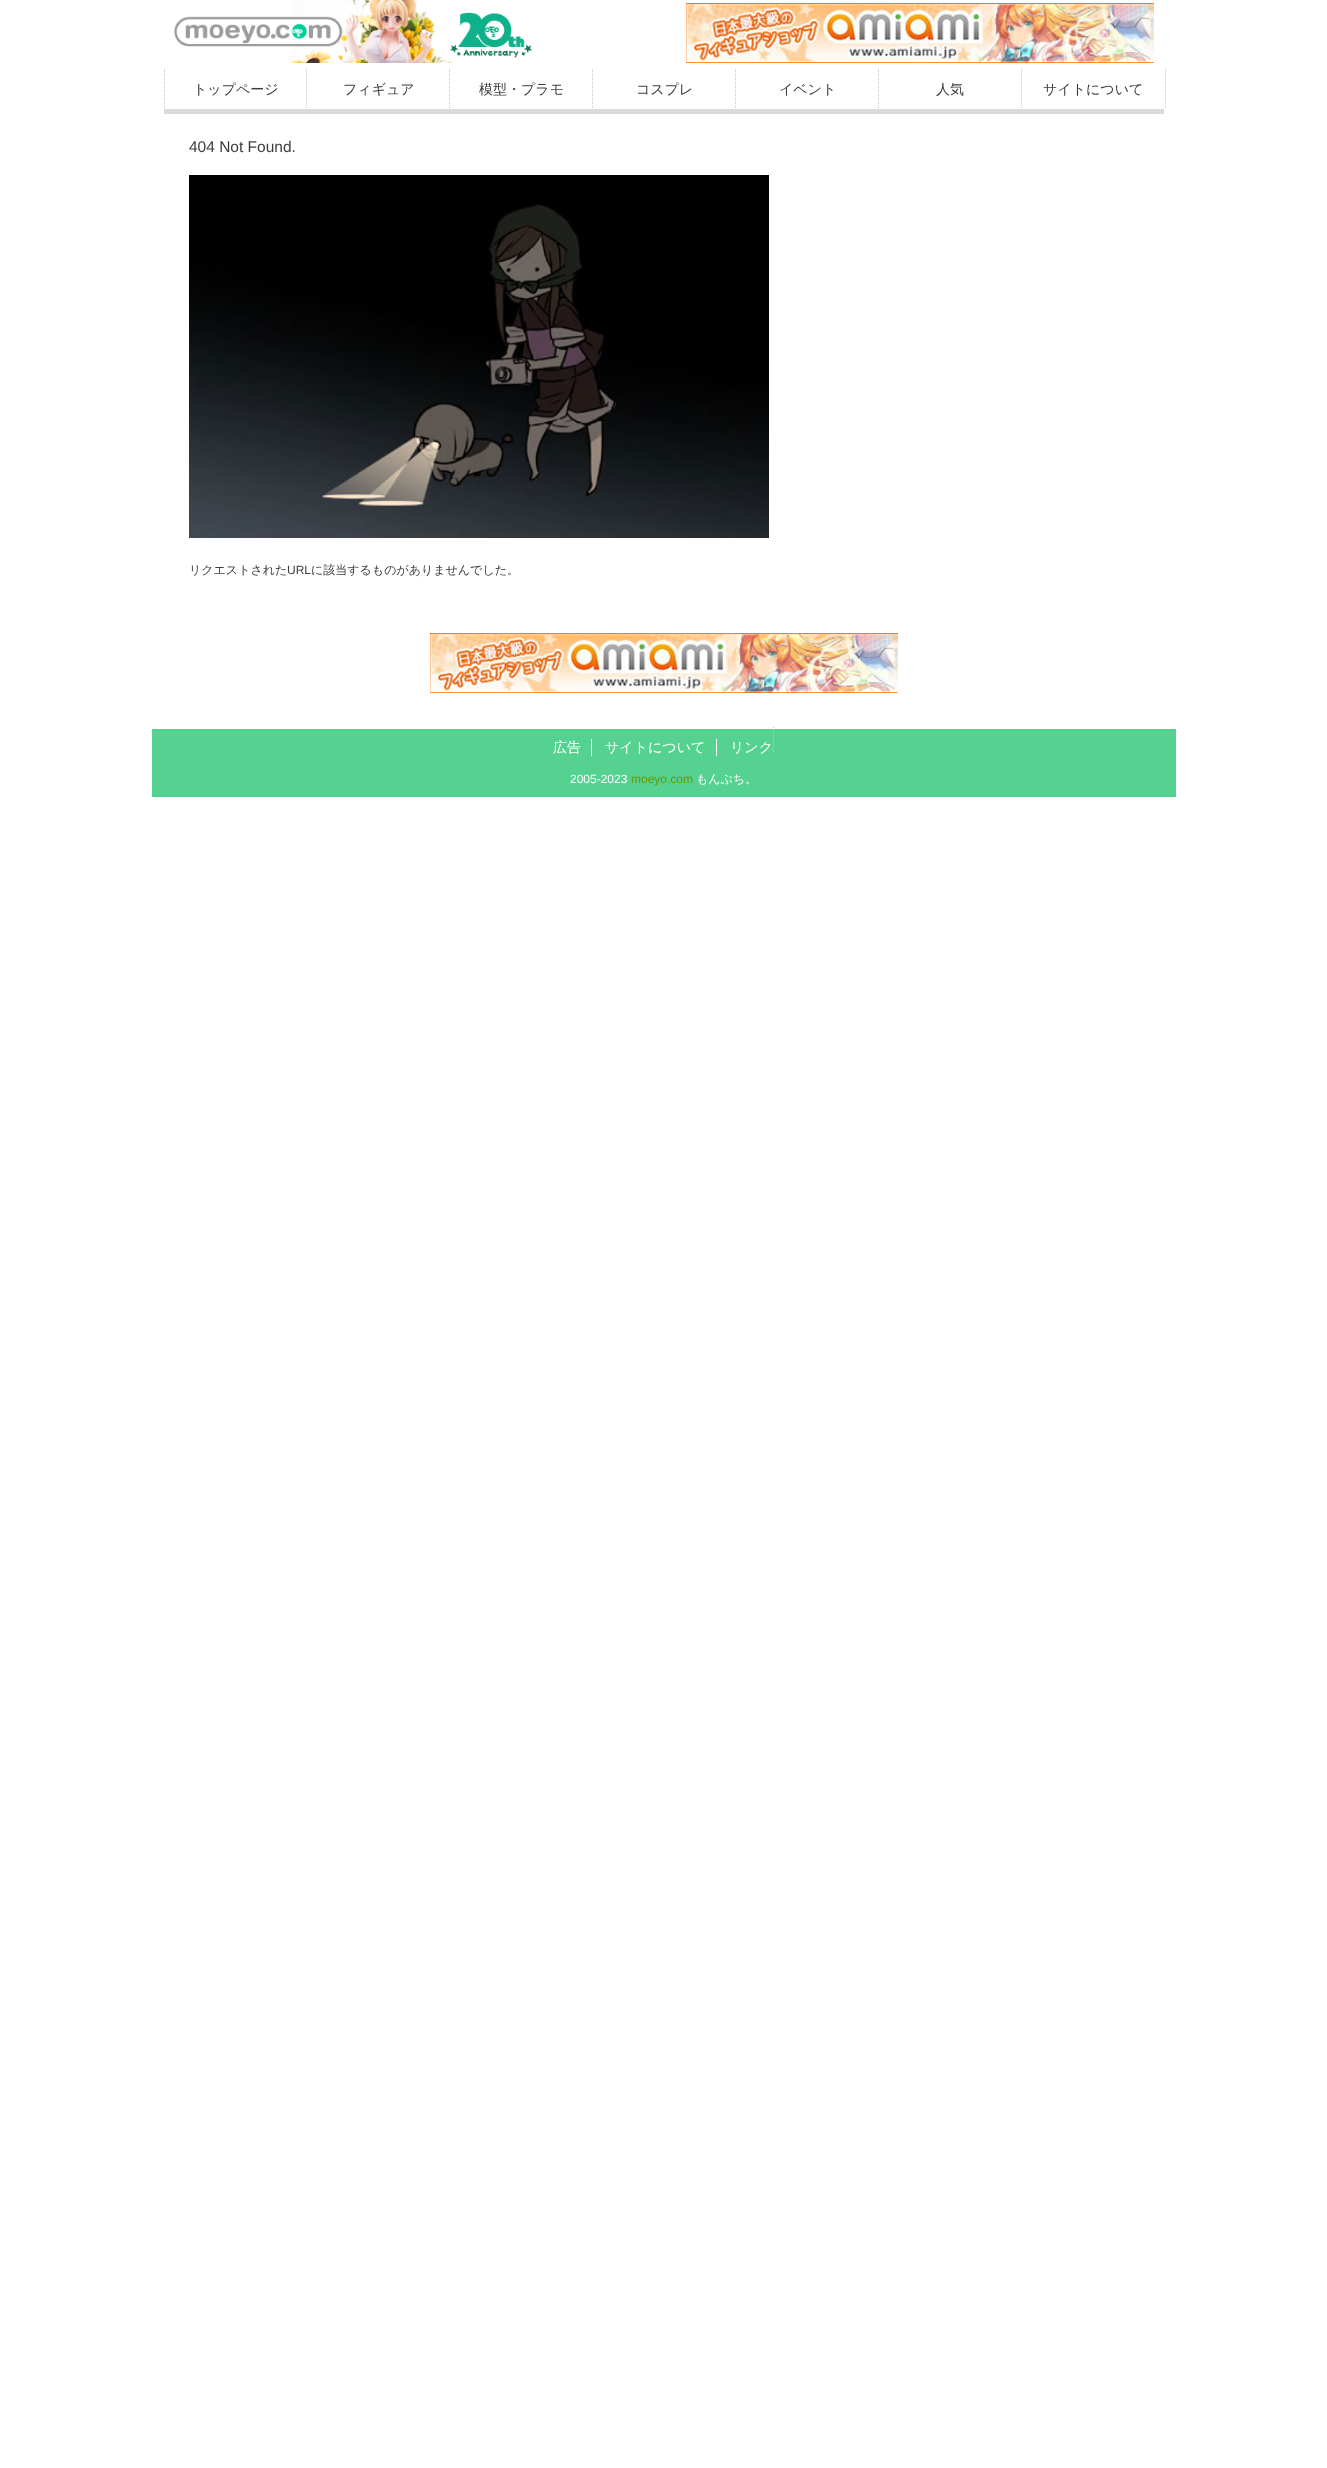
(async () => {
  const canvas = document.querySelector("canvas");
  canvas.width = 1327;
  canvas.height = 2468;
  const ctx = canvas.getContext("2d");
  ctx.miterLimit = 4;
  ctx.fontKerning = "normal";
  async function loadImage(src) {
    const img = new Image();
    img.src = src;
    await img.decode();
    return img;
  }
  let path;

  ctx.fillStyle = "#ffffff";
  ctx.fillRect(0, 0, 1327, 2468);
  ctx.drawImage(await loadImage("img/1.png"), 174, 0, 358, 63);
  ctx.drawImage(await loadImage("img/2.png"), 686, 3, 468, 60);
  ctx.fillStyle = "#ded9d9";
  ctx.fillRect(164, 109, 1000, 5);
  path = new Path2D("M164.5 69V109");
  ctx.strokeStyle = "#c3c3c3";
  ctx.setLineDash([1, 1]);
  ctx.stroke(path);
  path = new Path2D("M306.5 69V109");
  ctx.stroke(path);
  path = new Path2D("M449.5 69V109");
  ctx.stroke(path);
  path = new Path2D("M592.5 69V109");
  ctx.stroke(path);
  path = new Path2D("M735.5 69V109");
  ctx.stroke(path);
  path = new Path2D("M878.5 69V109");
  ctx.stroke(path);
  path = new Path2D("M1165.5 69V109");
  ctx.stroke(path);
  path = new Path2D("M1021.5 69V109");
  ctx.stroke(path);
  ctx.drawImage(await loadImage("img/3.png"), 189, 175, 580, 363);
  ctx.drawImage(await loadImage("img/2.png"), 430, 633, 468, 60);
  for (const [x, y, w, h, color] of [
    [152, 729, 1024, 68, "#56d290"],
    [591, 739, 1, 17, "#ffffff"],
    [716, 739, 1, 17, "#ffffff"],
  ]) {
    ctx.fillStyle = color;
    ctx.fillRect(x, y, w, h);
  }
  path = new Path2D("M773.5 727V755");
  ctx.stroke(path);
  ctx.font = "500 14px WenQuanYi Zen Hei";
  ctx.fillStyle = "#3c3c3c";
  for (const [text, x, y] of [
    ["トップページ", 193, 94],
    ["フィギュア", 343, 94],
    ["模型・プラモ", 479, 94],
    ["コスプレ", 636, 94],
    ["イベント", 779, 94],
    ["人気", 936, 94],
    ["サイトについて", 1043, 94],
  ]) {
    ctx.fillText(text, x, y);
  }
  ctx.font = "15.5px Liberation Sans";
  ctx.fillText("404 Not Found.", 189, 152);
  ctx.font = "500 12px WenQuanYi Zen Hei";
  ctx.fillText("リクエストされた", 189, 574);
  ctx.font = "12px Liberation Sans";
  ctx.fillText("URL", 287, 574);
  ctx.font = "500 12px WenQuanYi Zen Hei";
  ctx.fillText("に該当するものがありませんでした。", 311, 574);
  ctx.font = "500 14px WenQuanYi Zen Hei";
  ctx.fillStyle = "#ffffff";
  for (const [text, x, y] of [
    ["広告", 553, 752],
    ["サイトについて", 605, 752],
    ["リンク", 730, 752],
  ]) {
    ctx.fillText(text, x, y);
  }
  ctx.font = "12px Liberation Sans";
  ctx.fillText("2005-2023", 570, 783);
  ctx.fillStyle = "#669900";
  ctx.fillText("moeyo.com", 631, 783);
  ctx.font = "500 12px WenQuanYi Zen Hei";
  ctx.fillStyle = "#ffffff";
  ctx.fillText("もんぷち。", 696, 783);
})();
